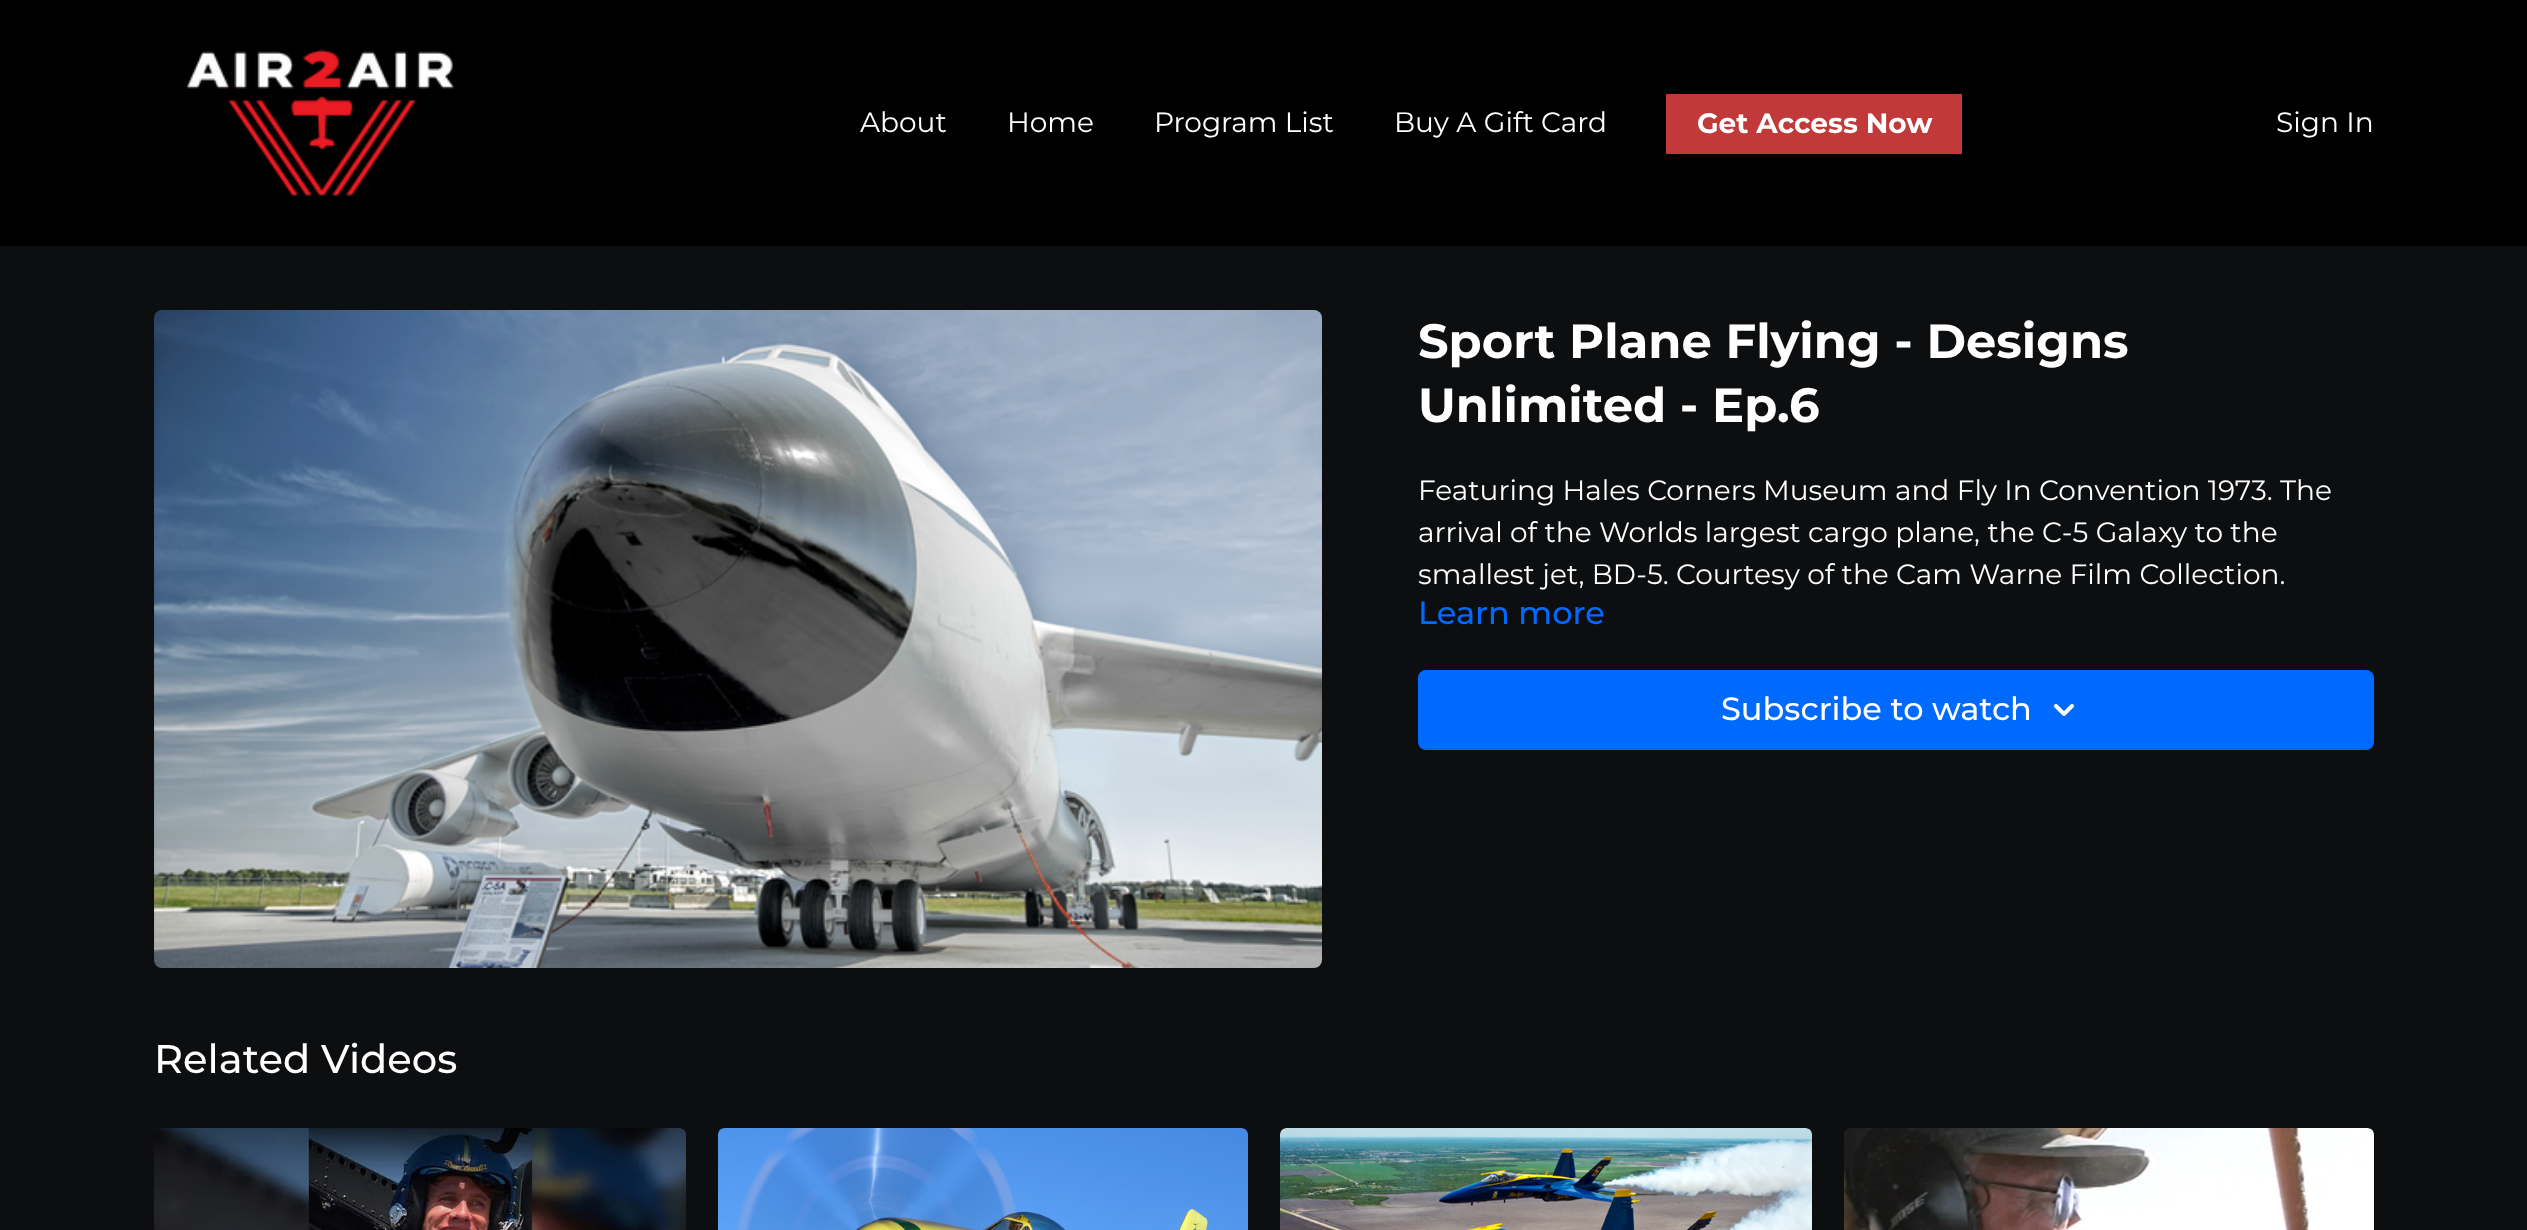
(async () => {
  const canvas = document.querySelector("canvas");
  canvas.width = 2527;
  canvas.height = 1230;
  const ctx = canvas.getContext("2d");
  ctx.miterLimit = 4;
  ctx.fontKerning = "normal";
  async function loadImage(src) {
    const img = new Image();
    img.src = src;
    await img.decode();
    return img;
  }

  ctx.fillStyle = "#0d0e10";
  ctx.fillRect(0, 0, 2527, 1230);
  ctx.fillStyle = "#000000";
  ctx.fillRect(0, 0, 2527, 246);
  ctx.drawImage(await loadImage("img/1.png"), 186, 49, 269, 148);
  ctx.fillStyle = "#c13939";
  ctx.fillRect(1666, 94, 296, 60);
  ctx.drawImage(await loadImage("img/2.png"), 154, 310, 1168, 658);
  ctx.fillStyle = "#006aff";
  ctx.beginPath();
  ctx.roundRect(1418, 670, 956, 80, 8);
  ctx.fill();
  ctx.drawImage(await loadImage("img/3.png"), 2054, 704, 20, 12);
  ctx.drawImage(await loadImage("img/4.png"), 154, 1128, 532, 102);
  ctx.drawImage(await loadImage("img/5.png"), 718, 1128, 530, 102);
  ctx.drawImage(await loadImage("img/6.png"), 1280, 1128, 532, 102);
  ctx.drawImage(await loadImage("img/7.png"), 1844, 1128, 530, 102);
  ctx.font = "28px Montserrat";
  ctx.fillStyle = "#ffffff";
  for (const [text, x, y] of [
    ["About", 860, 132],
    ["Home", 1007, 132],
    ["Program List", 1154, 132],
    ["Buy A Gift Card", 1394, 132],
  ]) {
    ctx.fillText(text, x, y);
  }
  ctx.font = "bold 28px Montserrat";
  ctx.fillText("Get Access Now", 1697, 133);
  ctx.font = "28px Montserrat";
  ctx.fillText("Sign In", 2276, 132);
  ctx.font = "bold 48px Montserrat";
  ctx.fillText("Sport Plane Flying - Designs", 1418, 358);
  ctx.fillText("Unlimited - Ep.6", 1418, 422);
  ctx.font = "28px Montserrat";
  for (const [text, x, y] of [
    ["Featuring Hales Corners Museum and Fly In Convention 1973. The", 1418, 500],
    ["arrival of the Worlds largest cargo plane, the C-5 Galaxy to the", 1418, 542],
    ["smallest jet, BD-5. Courtesy of the Cam Warne Film Collection.", 1418, 584],
  ]) {
    ctx.fillText(text, x, y);
  }
  ctx.font = "500 32px Montserrat";
  ctx.fillStyle = "#006aff";
  ctx.fillText("Learn more", 1418, 624);
  ctx.fillStyle = "#ffffff";
  ctx.fillText("Subscribe to watch", 1721, 720);
  ctx.font = "500 40px Montserrat";
  ctx.fillText("Related Videos", 154, 1073);
})();
